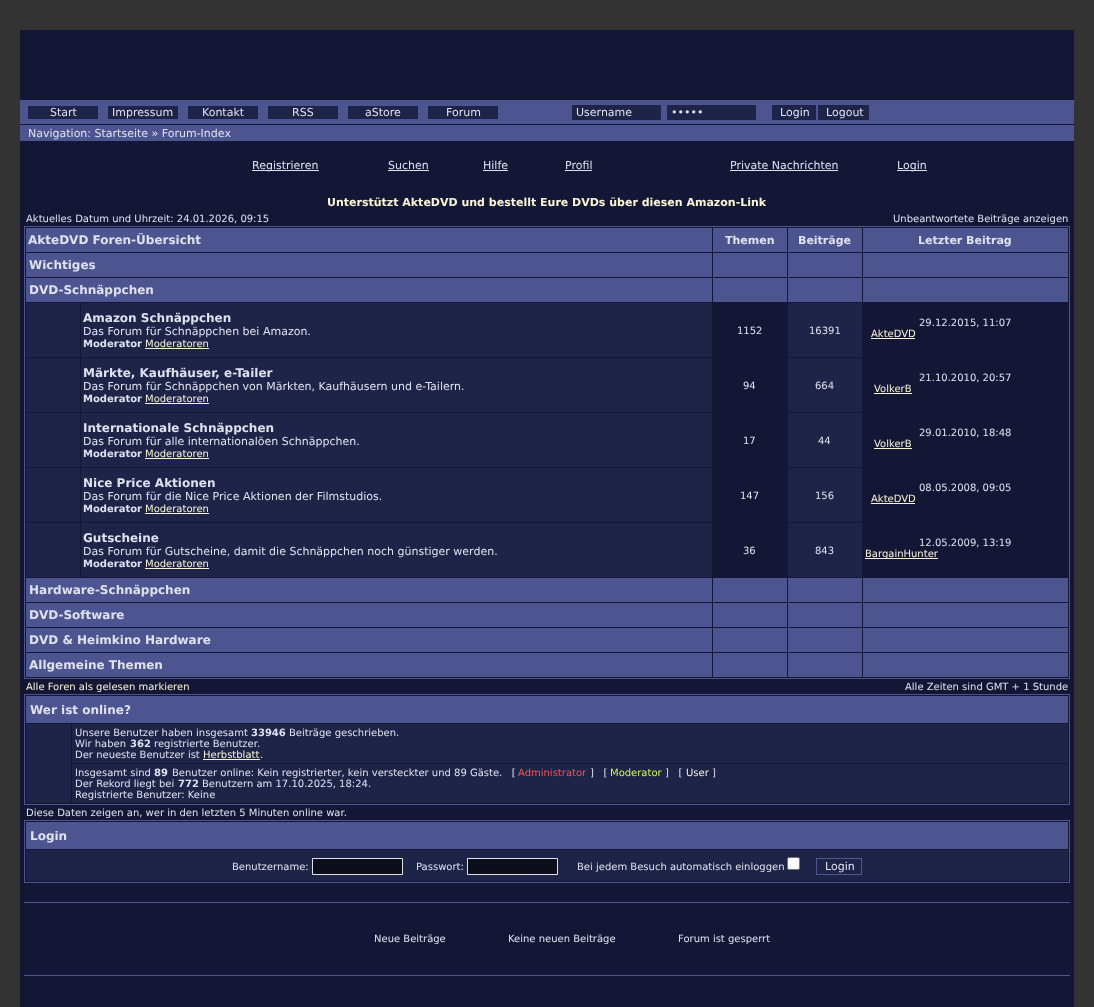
(async () => {
  const canvas = document.querySelector("canvas");
  canvas.width = 1094;
  canvas.height = 1007;
  const ctx = canvas.getContext("2d");
  ctx.miterLimit = 4;
  ctx.fontKerning = "normal";

  ctx.fillStyle = "#333333";
  ctx.fillRect(0, 0, 1094, 1007);
  for (const [x, y, w, h, color] of [
    [20, 30, 1054, 95, "#131735"],
    [20, 100, 1054, 24, "#4d5591"],
    [28, 106, 70, 13, "#1e2348"],
    [108, 106, 70, 13, "#1e2348"],
    [188, 106, 70, 13, "#1e2348"],
    [268, 106, 70, 13, "#1e2348"],
    [348, 106, 70, 13, "#1e2348"],
    [428, 106, 70, 13, "#1e2348"],
    [572, 105, 89, 15, "#1e2348"],
    [667, 105, 89, 15, "#1e2348"],
    [772, 105, 44, 15, "#1e2348"],
    [818, 105, 51, 15, "#1e2348"],
    [20, 125, 1054, 16, "#4d5591"],
    [20, 141, 1054, 866, "#131735"],
    [252, 170, 67, 1, "#dfe1ef"],
    [388, 170, 41, 1, "#dfe1ef"],
    [483, 170, 25, 1, "#dfe1ef"],
    [565, 170, 27, 1, "#dfe1ef"],
    [730, 170, 108, 1, "#dfe1ef"],
    [897, 170, 30, 1, "#dfe1ef"],
  ]) {
    ctx.fillStyle = color;
    ctx.fillRect(x, y, w, h);
  }
  ctx.strokeStyle = "#4d5591";
  ctx.strokeRect(24.5, 226.5, 1045, 452);
  for (const [x, y, w, h, color] of [
    [26, 228, 686, 24, "#4d5591"],
    [713, 228, 74, 24, "#4d5591"],
    [788, 228, 74, 24, "#4d5591"],
    [863, 228, 205, 24, "#4d5591"],
    [26, 253, 686, 24, "#4d5591"],
    [713, 253, 74, 24, "#4d5591"],
    [788, 253, 74, 24, "#4d5591"],
    [863, 253, 205, 24, "#4d5591"],
    [26, 278, 686, 24, "#4d5591"],
    [713, 278, 74, 24, "#4d5591"],
    [788, 278, 74, 24, "#4d5591"],
    [863, 278, 205, 24, "#4d5591"],
    [26, 303, 54, 54, "#1e2348"],
    [81, 303, 631, 54, "#1e2348"],
    [145, 348, 64, 1, "#f9f4d5"],
    [788, 303, 74, 54, "#1e2348"],
    [871, 338, 44, 1, "#f9f4d5"],
    [26, 358, 54, 54, "#1e2348"],
    [81, 358, 631, 54, "#1e2348"],
    [145, 403, 64, 1, "#f9f4d5"],
    [788, 358, 74, 54, "#1e2348"],
    [874, 393, 38, 1, "#f9f4d5"],
    [26, 413, 54, 54, "#1e2348"],
    [81, 413, 631, 54, "#1e2348"],
    [145, 458, 64, 1, "#f9f4d5"],
    [788, 413, 74, 54, "#1e2348"],
    [874, 448, 38, 1, "#f9f4d5"],
    [26, 468, 54, 54, "#1e2348"],
    [81, 468, 631, 54, "#1e2348"],
    [145, 513, 64, 1, "#f9f4d5"],
    [788, 468, 74, 54, "#1e2348"],
    [871, 503, 44, 1, "#f9f4d5"],
    [26, 523, 54, 54, "#1e2348"],
    [81, 523, 631, 54, "#1e2348"],
    [145, 568, 64, 1, "#f9f4d5"],
    [788, 523, 74, 54, "#1e2348"],
    [865, 558, 73, 1, "#f9f4d5"],
    [26, 578, 686, 24, "#4d5591"],
    [713, 578, 74, 24, "#4d5591"],
    [788, 578, 74, 24, "#4d5591"],
    [863, 578, 205, 24, "#4d5591"],
    [26, 603, 686, 24, "#4d5591"],
    [713, 603, 74, 24, "#4d5591"],
    [788, 603, 74, 24, "#4d5591"],
    [863, 603, 205, 24, "#4d5591"],
    [26, 628, 686, 24, "#4d5591"],
    [713, 628, 74, 24, "#4d5591"],
    [788, 628, 74, 24, "#4d5591"],
    [863, 628, 205, 24, "#4d5591"],
    [26, 653, 686, 24, "#4d5591"],
    [713, 653, 74, 24, "#4d5591"],
    [788, 653, 74, 24, "#4d5591"],
    [863, 653, 205, 24, "#4d5591"],
  ]) {
    ctx.fillStyle = color;
    ctx.fillRect(x, y, w, h);
  }
  ctx.strokeRect(24.5, 694.5, 1045, 110);
  for (const [x, y, w, h, color] of [
    [27, 697, 1040, 26, "#4d5591"],
    [26, 696, 1042, 1, "#4d5591"],
    [1067, 696, 1, 27, "#4d5591"],
    [26, 696, 1, 27, "#4d5591"],
    [26, 724, 45, 79, "#1e2348"],
    [72, 724, 996, 39, "#1e2348"],
    [203, 759, 57, 1, "#f9f4d5"],
    [72, 764, 996, 39, "#1e2348"],
  ]) {
    ctx.fillStyle = color;
    ctx.fillRect(x, y, w, h);
  }
  ctx.strokeRect(24.5, 820.5, 1045, 62);
  for (const [x, y, w, h, color] of [
    [27, 823, 1040, 26, "#4d5591"],
    [26, 822, 1042, 1, "#4d5591"],
    [1067, 822, 1, 27, "#4d5591"],
    [26, 822, 1, 27, "#4d5591"],
    [26, 850, 1042, 31, "#1e2348"],
  ]) {
    ctx.fillStyle = color;
    ctx.fillRect(x, y, w, h);
  }
  ctx.fillStyle = "#0c0e1c";
  ctx.beginPath();
  ctx.rect(312.5, 858.5, 90, 16);
  ctx.fill();
  ctx.strokeStyle = "#dfe1ef";
  ctx.stroke();
  ctx.beginPath();
  ctx.rect(467.5, 858.5, 90, 16);
  ctx.fill();
  ctx.stroke();
  ctx.fillStyle = "#ffffff";
  ctx.beginPath();
  ctx.roundRect(787.5, 857.5, 12, 12, 1.5);
  ctx.fill();
  ctx.strokeStyle = "#767676";
  ctx.stroke();
  ctx.strokeStyle = "#4d5591";
  ctx.strokeRect(816.5, 858.5, 45, 16);
  ctx.fillStyle = "#4d5591";
  ctx.fillRect(24, 902, 1046, 1);
  ctx.fillRect(24, 975, 1046, 1);
  ctx.font = "11px DejaVu Sans";
  ctx.fillStyle = "#dfe1ef";
  for (const [text, x, y] of [
    ["Start", 50, 116],
    ["Impressum", 112, 116],
    ["Kontakt", 202, 116],
    ["RSS", 292, 116],
    ["aStore", 365, 116],
    ["Forum", 446, 116],
    ["Username", 576, 116],
    ["•••••", 671, 116],
    ["Login", 780, 116],
    ["Logout", 826, 116],
    ["Navigation: Startseite » Forum-Index", 28, 137],
    ["Registrieren", 252, 169],
    ["Suchen", 388, 169],
    ["Hilfe", 483, 169],
    ["Profil", 565, 169],
    ["Private Nachrichten", 730, 169],
    ["Login", 897, 169],
  ]) {
    ctx.fillText(text, x, y);
  }
  ctx.font = "bold 11px DejaVu Sans";
  ctx.fillStyle = "#f9f4d5";
  ctx.fillText("Unterstützt AkteDVD und bestellt Eure DVDs über diesen Amazon-Link", 327, 206);
  ctx.font = "10px DejaVu Sans";
  ctx.fillStyle = "#dfe1ef";
  ctx.fillText("Aktuelles Datum und Uhrzeit: 24.01.2026, 09:15", 26, 222);
  ctx.fillText("Unbeantwortete Beiträge anzeigen", 893, 222);
  ctx.font = "bold 12px DejaVu Sans";
  ctx.fillText("AkteDVD Foren-Übersicht", 28, 244);
  ctx.font = "bold 11px DejaVu Sans";
  for (const [text, x, y] of [
    ["Themen", 725, 244],
    ["Beiträge", 798, 244],
    ["Letzter Beitrag", 918, 244],
  ]) {
    ctx.fillText(text, x, y);
  }
  ctx.font = "bold 12px DejaVu Sans";
  for (const [text, x, y] of [
    ["Wichtiges", 29, 269],
    ["DVD-Schnäppchen", 29, 294],
    ["Amazon Schnäppchen", 83, 322],
  ]) {
    ctx.fillText(text, x, y);
  }
  ctx.font = "11px DejaVu Sans";
  ctx.fillText("Das Forum für Schnäppchen bei Amazon.", 83, 335);
  ctx.font = "bold 10px DejaVu Sans";
  ctx.fillText("Moderator", 83, 347);
  ctx.font = "10px DejaVu Sans";
  ctx.fillStyle = "#f9f4d5";
  ctx.fillText("Moderatoren", 145, 347);
  ctx.fillStyle = "#dfe1ef";
  for (const [text, x, y] of [
    ["1152", 737, 334],
    ["16391", 809, 334],
    ["29.12.2015, 11:07", 919, 326],
  ]) {
    ctx.fillText(text, x, y);
  }
  ctx.fillStyle = "#f9f4d5";
  ctx.fillText("AkteDVD", 871, 337);
  ctx.font = "bold 12px DejaVu Sans";
  ctx.fillStyle = "#dfe1ef";
  ctx.fillText("Märkte, Kaufhäuser, e-Tailer", 83, 377);
  ctx.font = "11px DejaVu Sans";
  ctx.fillText("Das Forum für Schnäppchen von Märkten, Kaufhäusern und e-Tailern.", 83, 390);
  ctx.font = "bold 10px DejaVu Sans";
  ctx.fillText("Moderator", 83, 402);
  ctx.font = "10px DejaVu Sans";
  ctx.fillStyle = "#f9f4d5";
  ctx.fillText("Moderatoren", 145, 402);
  ctx.fillStyle = "#dfe1ef";
  for (const [text, x, y] of [
    ["94", 743, 389],
    ["664", 815, 389],
    ["21.10.2010, 20:57", 919, 381],
  ]) {
    ctx.fillText(text, x, y);
  }
  ctx.fillStyle = "#f9f4d5";
  ctx.fillText("VolkerB", 874, 392);
  ctx.font = "bold 12px DejaVu Sans";
  ctx.fillStyle = "#dfe1ef";
  ctx.fillText("Internationale Schnäppchen", 83, 432);
  ctx.font = "11px DejaVu Sans";
  ctx.fillText("Das Forum für alle internationalöen Schnäppchen.", 83, 445);
  ctx.font = "bold 10px DejaVu Sans";
  ctx.fillText("Moderator", 83, 457);
  ctx.font = "10px DejaVu Sans";
  ctx.fillStyle = "#f9f4d5";
  ctx.fillText("Moderatoren", 145, 457);
  ctx.fillStyle = "#dfe1ef";
  for (const [text, x, y] of [
    ["17", 743, 444],
    ["44", 818, 444],
    ["29.01.2010, 18:48", 919, 436],
  ]) {
    ctx.fillText(text, x, y);
  }
  ctx.fillStyle = "#f9f4d5";
  ctx.fillText("VolkerB", 874, 447);
  ctx.font = "bold 12px DejaVu Sans";
  ctx.fillStyle = "#dfe1ef";
  ctx.fillText("Nice Price Aktionen", 83, 487);
  ctx.font = "11px DejaVu Sans";
  ctx.fillText("Das Forum für die Nice Price Aktionen der Filmstudios.", 83, 500);
  ctx.font = "bold 10px DejaVu Sans";
  ctx.fillText("Moderator", 83, 512);
  ctx.font = "10px DejaVu Sans";
  ctx.fillStyle = "#f9f4d5";
  ctx.fillText("Moderatoren", 145, 512);
  ctx.fillStyle = "#dfe1ef";
  for (const [text, x, y] of [
    ["147", 740, 499],
    ["156", 815, 499],
    ["08.05.2008, 09:05", 919, 491],
  ]) {
    ctx.fillText(text, x, y);
  }
  ctx.fillStyle = "#f9f4d5";
  ctx.fillText("AkteDVD", 871, 502);
  ctx.font = "bold 12px DejaVu Sans";
  ctx.fillStyle = "#dfe1ef";
  ctx.fillText("Gutscheine", 83, 542);
  ctx.font = "11px DejaVu Sans";
  ctx.fillText("Das Forum für Gutscheine, damit die Schnäppchen noch günstiger werden.", 83, 555);
  ctx.font = "bold 10px DejaVu Sans";
  ctx.fillText("Moderator", 83, 567);
  ctx.font = "10px DejaVu Sans";
  ctx.fillStyle = "#f9f4d5";
  ctx.fillText("Moderatoren", 145, 567);
  ctx.fillStyle = "#dfe1ef";
  for (const [text, x, y] of [
    ["36", 743, 554],
    ["843", 815, 554],
    ["12.05.2009, 13:19", 919, 546],
  ]) {
    ctx.fillText(text, x, y);
  }
  ctx.fillStyle = "#f9f4d5";
  ctx.fillText("BargainHunter", 865, 557);
  ctx.font = "bold 12px DejaVu Sans";
  ctx.fillStyle = "#dfe1ef";
  for (const [text, x, y] of [
    ["Hardware-Schnäppchen", 29, 594],
    ["DVD-Software", 29, 619],
    ["DVD & Heimkino Hardware", 29, 644],
    ["Allgemeine Themen", 29, 669],
  ]) {
    ctx.fillText(text, x, y);
  }
  ctx.font = "10px DejaVu Sans";
  ctx.fillStyle = "#f9f4d5";
  ctx.fillText("Alle Foren als gelesen markieren", 26, 690);
  ctx.fillStyle = "#dfe1ef";
  ctx.fillText("Alle Zeiten sind GMT + 1 Stunde", 905, 690);
  ctx.font = "bold 12px DejaVu Sans";
  ctx.fillText("Wer ist online?", 30, 714);
  ctx.font = "10px DejaVu Sans";
  ctx.fillText("Unsere Benutzer haben insgesamt", 75, 736);
  ctx.font = "bold 10px DejaVu Sans";
  ctx.fillText("33946", 251, 736);
  ctx.font = "10px DejaVu Sans";
  ctx.fillText("Beiträge geschrieben.", 289, 736);
  ctx.fillText("Wir haben", 75, 747);
  ctx.font = "bold 10px DejaVu Sans";
  ctx.fillText("362", 130, 747);
  ctx.font = "10px DejaVu Sans";
  ctx.fillText("registrierte Benutzer.", 154, 747);
  ctx.fillText("Der neueste Benutzer ist", 75, 758);
  ctx.fillStyle = "#f9f4d5";
  ctx.fillText("Herbstblatt", 203, 758);
  ctx.fillStyle = "#dfe1ef";
  ctx.fillText(".", 260, 758);
  ctx.fillText("Insgesamt sind", 75, 776);
  ctx.font = "bold 10px DejaVu Sans";
  ctx.fillText("89", 154, 776);
  ctx.font = "10px DejaVu Sans";
  ctx.fillText("Benutzer online: Kein registrierter, kein versteckter und 89 Gäste.   [", 172, 776);
  ctx.fillStyle = "#f65252";
  ctx.fillText("Administrator", 518, 776);
  ctx.fillStyle = "#dfe1ef";
  ctx.fillText("]   [", 590, 776);
  ctx.fillStyle = "#cef751";
  ctx.fillText("Moderator", 610, 776);
  ctx.fillStyle = "#dfe1ef";
  ctx.fillText("]   [", 665, 776);
  ctx.fillStyle = "#f9f4d5";
  ctx.fillText("User", 686, 776);
  ctx.fillStyle = "#dfe1ef";
  ctx.fillText("]", 712, 776);
  ctx.fillText("Der Rekord liegt bei", 75, 787);
  ctx.font = "bold 10px DejaVu Sans";
  ctx.fillText("772", 178, 787);
  ctx.font = "10px DejaVu Sans";
  for (const [text, x, y] of [
    ["Benutzern am 17.10.2025, 18:24.", 202, 787],
    ["Registrierte Benutzer: Keine", 75, 798],
    ["Diese Daten zeigen an, wer in den letzten 5 Minuten online war.", 26, 816],
  ]) {
    ctx.fillText(text, x, y);
  }
  ctx.font = "bold 12px DejaVu Sans";
  ctx.fillText("Login", 30, 840);
  ctx.font = "10px DejaVu Sans";
  for (const [text, x, y] of [
    ["Benutzername:", 232, 870],
    ["Passwort:", 416, 870],
    ["Bei jedem Besuch automatisch einloggen", 577, 870],
  ]) {
    ctx.fillText(text, x, y);
  }
  ctx.font = "11px DejaVu Sans";
  ctx.fillText("Login", 825, 870);
  ctx.font = "10px DejaVu Sans";
  for (const [text, x, y] of [
    ["Neue Beiträge", 374, 942],
    ["Keine neuen Beiträge", 508, 942],
    ["Forum ist gesperrt", 678, 942],
  ]) {
    ctx.fillText(text, x, y);
  }
})();
